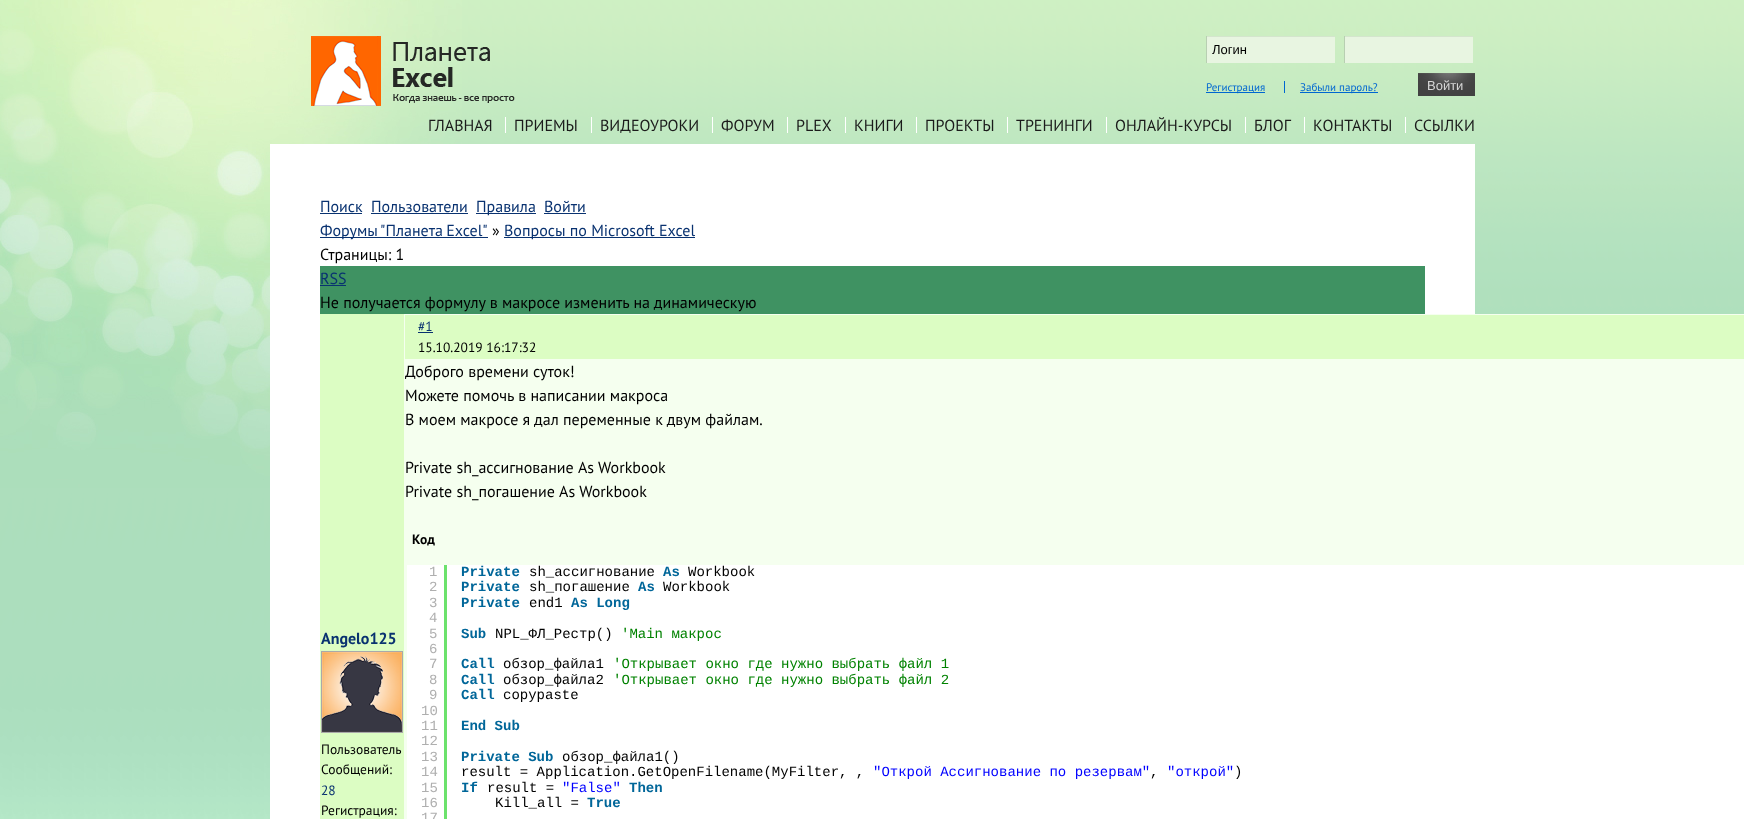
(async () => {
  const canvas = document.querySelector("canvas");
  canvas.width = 1744;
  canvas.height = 819;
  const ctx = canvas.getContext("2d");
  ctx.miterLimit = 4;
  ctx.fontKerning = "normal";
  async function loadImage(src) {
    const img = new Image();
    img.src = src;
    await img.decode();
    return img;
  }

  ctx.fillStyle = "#ffffff";
  ctx.fillRect(0, 0, 1744, 819);
  ctx.drawImage(await loadImage("img/1.png"), 0, 0, 1744, 819);
  ctx.drawImage(await loadImage("img/2.png"), 0, 0, 462, 488);
  ctx.drawImage(await loadImage("img/3.png"), 311, 36, 204, 70);
  for (const [x, y, w, h, color] of [
    [1207, 37, 128, 26, "#e8f5e1"],
    [1206, 36, 129, 1, "#d4e5cd"],
    [1206, 36, 1, 27, "#b8cfb2"],
    [1345, 37, 128, 26, "#e8f5e1"],
    [1344, 36, 129, 1, "#d4e5cd"],
    [1344, 36, 1, 27, "#b8cfb2"],
    [1206, 92, 59, 1, "#0067d1"],
    [1284, 81, 1, 12, "#0067d1"],
    [1300, 92, 78, 1, "#0067d1"],
  ]) {
    ctx.fillStyle = color;
    ctx.fillRect(x, y, w, h);
  }
  ctx.drawImage(await loadImage("img/4.png"), 1418, 73, 57, 23);
  for (const [x, y, w, h, color] of [
    [505, 117, 1, 16, "#ffffff"],
    [591, 117, 1, 16, "#ffffff"],
    [712, 117, 1, 16, "#ffffff"],
    [787, 117, 1, 16, "#ffffff"],
    [845, 117, 1, 16, "#ffffff"],
    [916, 117, 1, 16, "#ffffff"],
    [1007, 117, 1, 16, "#ffffff"],
    [1106, 117, 1, 16, "#ffffff"],
    [1245, 117, 1, 16, "#ffffff"],
    [1304, 117, 1, 16, "#ffffff"],
    [1405, 117, 1, 16, "#ffffff"],
    [270, 144, 1205, 675, "#ffffff"],
    [320, 213, 42, 1, "#093270"],
    [371, 213, 97, 1, "#093270"],
    [476, 213, 60, 1, "#093270"],
    [544, 213, 42, 1, "#093270"],
    [320, 237, 168, 1, "#093270"],
    [504, 237, 191, 1, "#093270"],
    [320, 266, 1105, 48, "#3f9262"],
    [320, 285, 26, 1, "#093270"],
    [320, 314, 84, 505, "#dcfdc3"],
  ]) {
    ctx.fillStyle = color;
    ctx.fillRect(x, y, w, h);
  }
  ctx.strokeStyle = "#a9a9a9";
  ctx.strokeRect(321.5, 651.5, 81, 81);
  ctx.drawImage(await loadImage("img/5.png"), 322, 652, 80, 80);
  for (const [x, y, w, h, color] of [
    [404, 314, 1340, 505, "#f5ffef"],
    [405, 315, 1339, 44, "#dcfdc3"],
    [418, 332, 15, 1, "#093270"],
    [407, 565, 1337, 254, "#ffffff"],
    [444, 565, 3, 254, "#6ce26c"],
  ]) {
    ctx.fillStyle = color;
    ctx.fillRect(x, y, w, h);
  }
  ctx.font = "13px Liberation Sans";
  ctx.fillStyle = "#000000";
  ctx.fillText("Логин", 1212, 54);
  ctx.font = "11px PT Sans";
  ctx.fillStyle = "#0067d1";
  ctx.fillText("Регистрация", 1206, 91);
  ctx.fillText("Забыли пароль?", 1300, 91);
  ctx.font = "13px Liberation Sans";
  ctx.fillStyle = "#d8d8d8";
  ctx.fillText("Войти", 1427, 90);
  ctx.font = "16px PT Sans";
  ctx.fillStyle = "#1b1b1b";
  for (const [text, x, y] of [
    ["ГЛАВНАЯ", 428, 131],
    ["ПРИЕМЫ", 514, 131],
    ["ВИДЕОУРОКИ", 600, 131],
    ["ФОРУМ", 721, 131],
    ["PLEX", 796, 131],
    ["КНИГИ", 854, 131],
    ["ПРОЕКТЫ", 925, 131],
    ["ТРЕНИНГИ", 1016, 131],
    ["ОНЛАЙН-КУРСЫ", 1115, 131],
    ["БЛОГ", 1254, 131],
    ["КОНТАКТЫ", 1313, 131],
    ["ССЫЛКИ", 1414, 131],
  ]) {
    ctx.fillText(text, x, y);
  }
  ctx.fillStyle = "#093270";
  for (const [text, x, y] of [
    ["Поиск", 320, 212],
    ["Пользователи", 371, 212],
    ["Правила", 476, 212],
    ["Войти", 544, 212],
  ]) {
    ctx.fillText(text, x, y);
  }
  ctx.wordSpacing = "-1px";
  ctx.fillText("Форумы \"Планета Excel\"", 320, 236);
  ctx.wordSpacing = "0px";
  ctx.fillStyle = "#000000";
  ctx.fillText("»", 492, 236);
  ctx.fillStyle = "#093270";
  ctx.fillText("Вопросы по Microsoft Excel", 504, 236);
  ctx.fillStyle = "#000000";
  ctx.fillText("Страницы: 1", 320, 260);
  ctx.fillStyle = "#093270";
  ctx.fillText("RSS", 320, 284);
  ctx.fillStyle = "#000000";
  ctx.fillText("Не получается формулу в макросе изменить на динамическую", 320, 308);
  ctx.font = "bold 16px PT Sans";
  ctx.fillStyle = "#093270";
  ctx.fillText("Angelo125", 321, 644);
  ctx.font = "13.5px PT Sans";
  ctx.fillStyle = "#000000";
  ctx.fillText("Пользователь", 321, 754);
  ctx.fillText("Сообщений:", 321, 774);
  ctx.fillStyle = "#093270";
  ctx.fillText("28", 321, 795);
  ctx.fillStyle = "#000000";
  ctx.fillText("Регистрация:", 321, 815);
  ctx.fillStyle = "#093270";
  ctx.fillText("#1", 418, 331);
  ctx.fillStyle = "#000000";
  ctx.fillText("15.10.2019 16:17:32", 418, 352);
  ctx.font = "16px PT Sans";
  for (const [text, x, y] of [
    ["Доброго времени суток!", 405, 377],
    ["Можете помочь в написании макроса", 405, 401],
    ["В моем макросе я дал переменные к двум файлам.", 405, 425],
    ["Private sh_ассигнование As Workbook", 405, 473],
    ["Private sh_погашение As Workbook", 405, 497],
  ]) {
    ctx.fillText(text, x, y);
  }
  ctx.font = "bold 13.5px PT Sans";
  ctx.fillText("Код", 412, 544);
  ctx.font = "14px Liberation Mono";
  ctx.fillStyle = "#afafaf";
  for (const [text, x, y] of [
    ["1", 429, 576],
    ["2", 429, 591],
    ["3", 429, 607],
    ["4", 429, 622],
    ["5", 429, 638],
    ["6", 429, 653],
    ["7", 429, 668],
    ["8", 429, 684],
    ["9", 429, 699],
    ["10", 421, 715],
    ["11", 421, 730],
    ["12", 421, 745],
    ["13", 421, 761],
    ["14", 421, 776],
    ["15", 421, 792],
    ["16", 421, 807],
    ["17", 421, 822],
  ]) {
    ctx.fillText(text, x, y);
  }
  ctx.font = "bold 14px Liberation Mono";
  ctx.fillStyle = "#006699";
  ctx.fillText("Private", 461, 576);
  ctx.font = "14px Liberation Mono";
  ctx.fillStyle = "#000000";
  ctx.fillText("sh_ассигнование", 529, 576);
  ctx.font = "bold 14px Liberation Mono";
  ctx.fillStyle = "#006699";
  ctx.fillText("As", 663, 576);
  ctx.font = "14px Liberation Mono";
  ctx.fillStyle = "#000000";
  ctx.fillText("Workbook", 688, 576);
  ctx.font = "bold 14px Liberation Mono";
  ctx.fillStyle = "#006699";
  ctx.fillText("Private", 461, 591);
  ctx.font = "14px Liberation Mono";
  ctx.fillStyle = "#000000";
  ctx.fillText("sh_погашение", 529, 591);
  ctx.font = "bold 14px Liberation Mono";
  ctx.fillStyle = "#006699";
  ctx.fillText("As", 638, 591);
  ctx.font = "14px Liberation Mono";
  ctx.fillStyle = "#000000";
  ctx.fillText("Workbook", 663, 591);
  ctx.font = "bold 14px Liberation Mono";
  ctx.fillStyle = "#006699";
  ctx.fillText("Private", 461, 607);
  ctx.font = "14px Liberation Mono";
  ctx.fillStyle = "#000000";
  ctx.fillText("end1", 529, 607);
  ctx.font = "bold 14px Liberation Mono";
  ctx.fillStyle = "#006699";
  ctx.fillText("As Long", 571, 607);
  ctx.fillText("Sub", 461, 638);
  ctx.font = "14px Liberation Mono";
  ctx.fillStyle = "#000000";
  ctx.fillText("NPL_ФЛ_Рестр()", 495, 638);
  ctx.fillStyle = "#008200";
  ctx.fillText("'Main макрос", 621, 638);
  ctx.font = "bold 14px Liberation Mono";
  ctx.fillStyle = "#006699";
  ctx.fillText("Call", 461, 668);
  ctx.font = "14px Liberation Mono";
  ctx.fillStyle = "#000000";
  ctx.fillText("обзор_файла1", 503, 668);
  ctx.fillStyle = "#008200";
  ctx.fillText("'Открывает окно где нужно выбрать файл 1", 613, 668);
  ctx.font = "bold 14px Liberation Mono";
  ctx.fillStyle = "#006699";
  ctx.fillText("Call", 461, 684);
  ctx.font = "14px Liberation Mono";
  ctx.fillStyle = "#000000";
  ctx.fillText("обзор_файла2", 503, 684);
  ctx.fillStyle = "#008200";
  ctx.fillText("'Открывает окно где нужно выбрать файл 2", 613, 684);
  ctx.font = "bold 14px Liberation Mono";
  ctx.fillStyle = "#006699";
  ctx.fillText("Call", 461, 699);
  ctx.font = "14px Liberation Mono";
  ctx.fillStyle = "#000000";
  ctx.fillText("copypaste", 503, 699);
  ctx.font = "bold 14px Liberation Mono";
  ctx.fillStyle = "#006699";
  ctx.fillText("End Sub", 461, 730);
  ctx.fillText("Private Sub", 461, 761);
  ctx.font = "14px Liberation Mono";
  ctx.fillStyle = "#000000";
  ctx.fillText("обзор_файла1()", 562, 761);
  ctx.fillText("result = Application.GetOpenFilename(MyFilter, ,", 461, 776);
  ctx.fillStyle = "#0000ff";
  ctx.fillText("\"Открой Ассигнование по резервам\"", 873, 776);
  ctx.fillStyle = "#000000";
  ctx.fillText(",", 1150, 776);
  ctx.fillStyle = "#0000ff";
  ctx.fillText("\"открой\"", 1167, 776);
  ctx.fillStyle = "#000000";
  ctx.fillText(")", 1234, 776);
  ctx.font = "bold 14px Liberation Mono";
  ctx.fillStyle = "#006699";
  ctx.fillText("If", 461, 792);
  ctx.font = "14px Liberation Mono";
  ctx.fillStyle = "#000000";
  ctx.fillText("result =", 487, 792);
  ctx.fillStyle = "#0000ff";
  ctx.fillText("\"False\"", 562, 792);
  ctx.font = "bold 14px Liberation Mono";
  ctx.fillStyle = "#006699";
  ctx.fillText("Then", 629, 792);
  ctx.font = "14px Liberation Mono";
  ctx.fillStyle = "#000000";
  ctx.fillText("Kill_all =", 495, 807);
  ctx.font = "bold 14px Liberation Mono";
  ctx.fillStyle = "#006699";
  ctx.fillText("True", 587, 807);
})();
